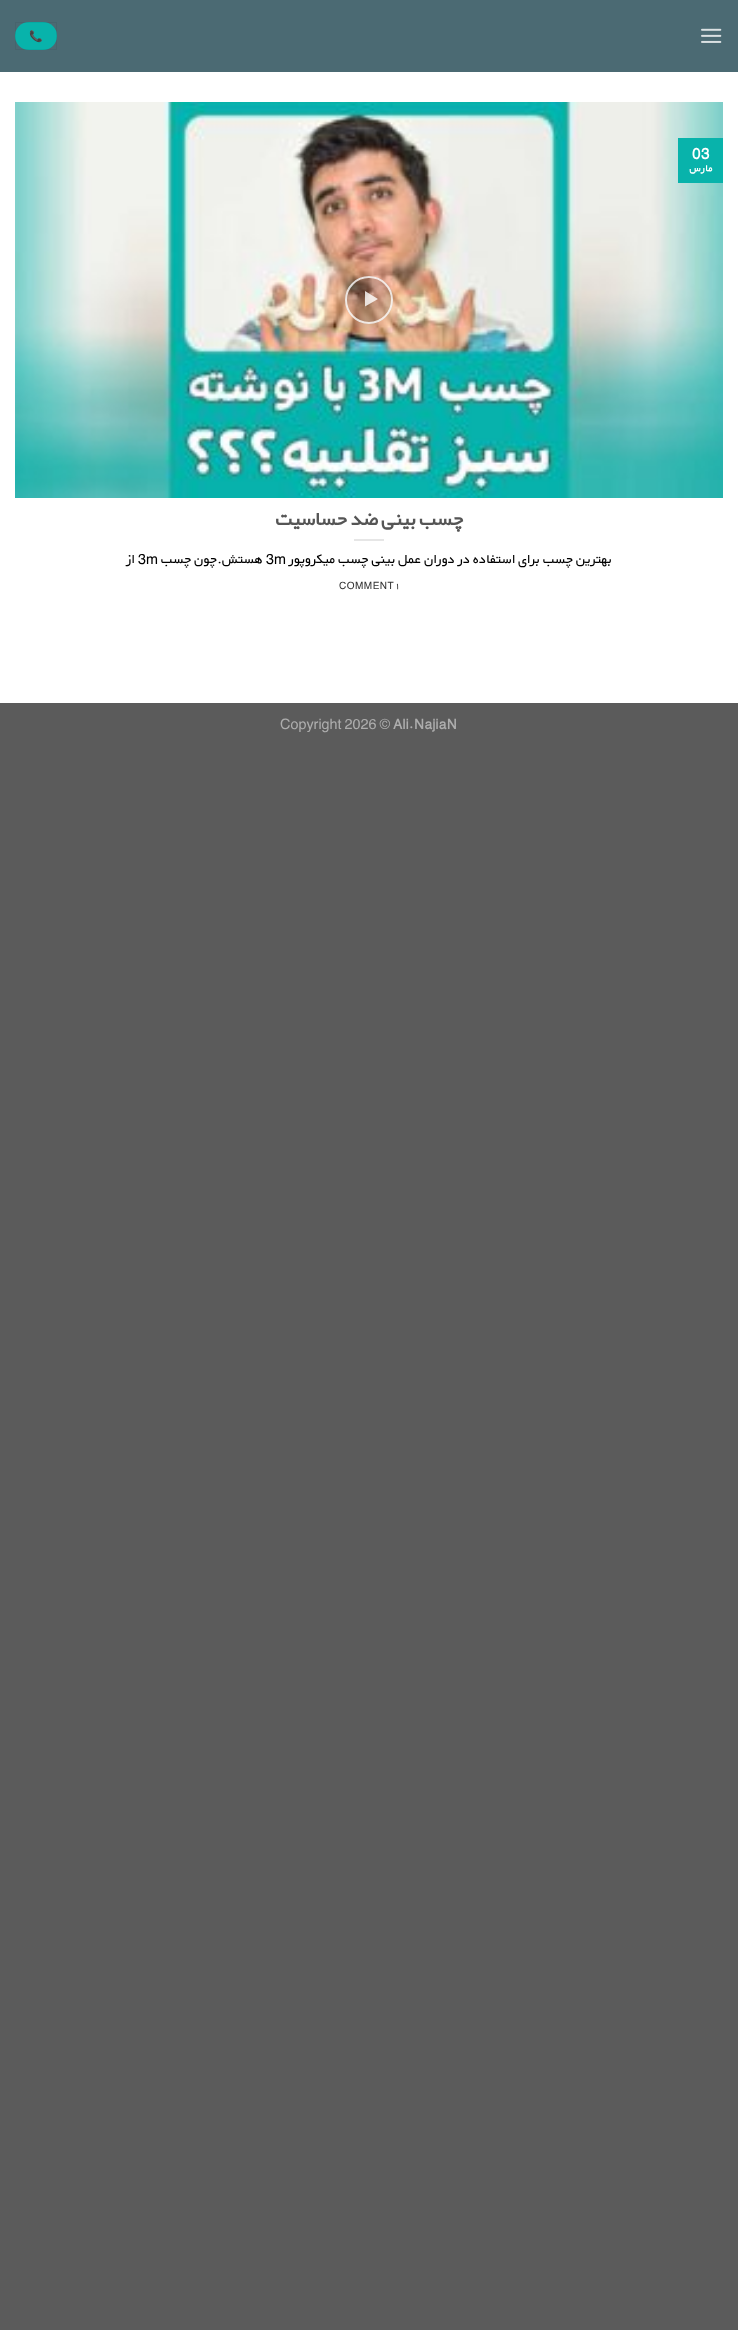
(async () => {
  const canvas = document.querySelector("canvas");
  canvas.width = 738;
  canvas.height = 2330;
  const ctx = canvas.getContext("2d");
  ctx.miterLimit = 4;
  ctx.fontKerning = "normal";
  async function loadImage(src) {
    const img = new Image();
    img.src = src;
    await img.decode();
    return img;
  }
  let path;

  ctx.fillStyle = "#5b5b5b";
  ctx.fillRect(0, 0, 738, 2330);
  ctx.fillStyle = "#ffffff";
  ctx.fillRect(0, 72, 738, 631);
  ctx.fillStyle = "#4b6a73";
  ctx.fillRect(0, 0, 738, 72);
  ctx.drawImage(await loadImage("img/1.png"), 701, 28, 21, 15);
  ctx.fillStyle = "#08b3ab";
  ctx.beginPath();
  ctx.roundRect(15, 22, 42, 28, 14);
  ctx.fill();
  ctx.strokeStyle = "rgba(0, 0, 0, 0.05)";
  ctx.strokeRect(15.5, 22.5, 41, 27);
  ctx.drawImage(await loadImage("img/2.png"), 15, 102, 708, 396);
  ctx.fillStyle = "rgba(0, 0, 0, 0.16)";
  ctx.beginPath();
  ctx.arc(369, 300, 24, 0, Math.PI * 2);
  ctx.fill();
  ctx.beginPath();
  ctx.arc(369, 300, 23, 0, Math.PI * 2);
  ctx.strokeStyle = "rgba(255, 255, 255, 0.8)";
  ctx.lineWidth = 2;
  ctx.stroke();
  ctx.fillStyle = "rgba(255, 255, 255, 0.8)";
  path = new Path2D("M365 291L378 299L365 306.5Z");
  ctx.fill(path);
  ctx.fillStyle = "#08b3ab";
  ctx.fillRect(678, 138, 45, 45);
  ctx.fillStyle = "#e6e6e6";
  ctx.fillRect(354, 539, 30, 2);
  ctx.font = "bold 11px Noto Color Emoji";
  ctx.fillStyle = "#ffffff";
  ctx.fillText("📞", 29, 40);
  ctx.font = "bold 16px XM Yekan";
  ctx.fillText("03", 692, 159);
  ctx.direction = "rtl";
  ctx.font = "bold 11px XM Yekan";
  ctx.fillText("مارس", 713, 172);
  ctx.font = "bold 16.5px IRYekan";
  ctx.fillStyle = "#555555";
  ctx.fillText("چسب بینی ضد حساسیت", 463, 525);
  ctx.font = "14.4px XM Yekan";
  ctx.fillStyle = "#000000";
  ctx.fillText("بهترین چسب برای استفاده در دوران عمل بینی چسب میکروپور", 612, 564);
  ctx.direction = "ltr";
  ctx.fillText("3m", 266, 564);
  ctx.direction = "rtl";
  ctx.fillText("هستش.چون چسب", 263, 564);
  ctx.direction = "ltr";
  ctx.fillText("3m", 138, 564);
  ctx.direction = "rtl";
  ctx.fillText("از", 135, 564);
  ctx.letterSpacing = "0.5px";
  ctx.direction = "ltr";
  ctx.font = "10px XM Yekan";
  ctx.fillStyle = "#333333";
  ctx.fillText("۱", 396, 589);
  ctx.fillText("COMMENT", 339, 589);
  ctx.letterSpacing = "0px";
  ctx.font = "bold 14.4px XM Yekan";
  ctx.fillStyle = "#adadad";
  ctx.fillText("Ali.NajiaN", 393, 729);
  ctx.font = "14.4px XM Yekan";
  ctx.fillText("Copyright 2026 ©", 280, 729);
})();
